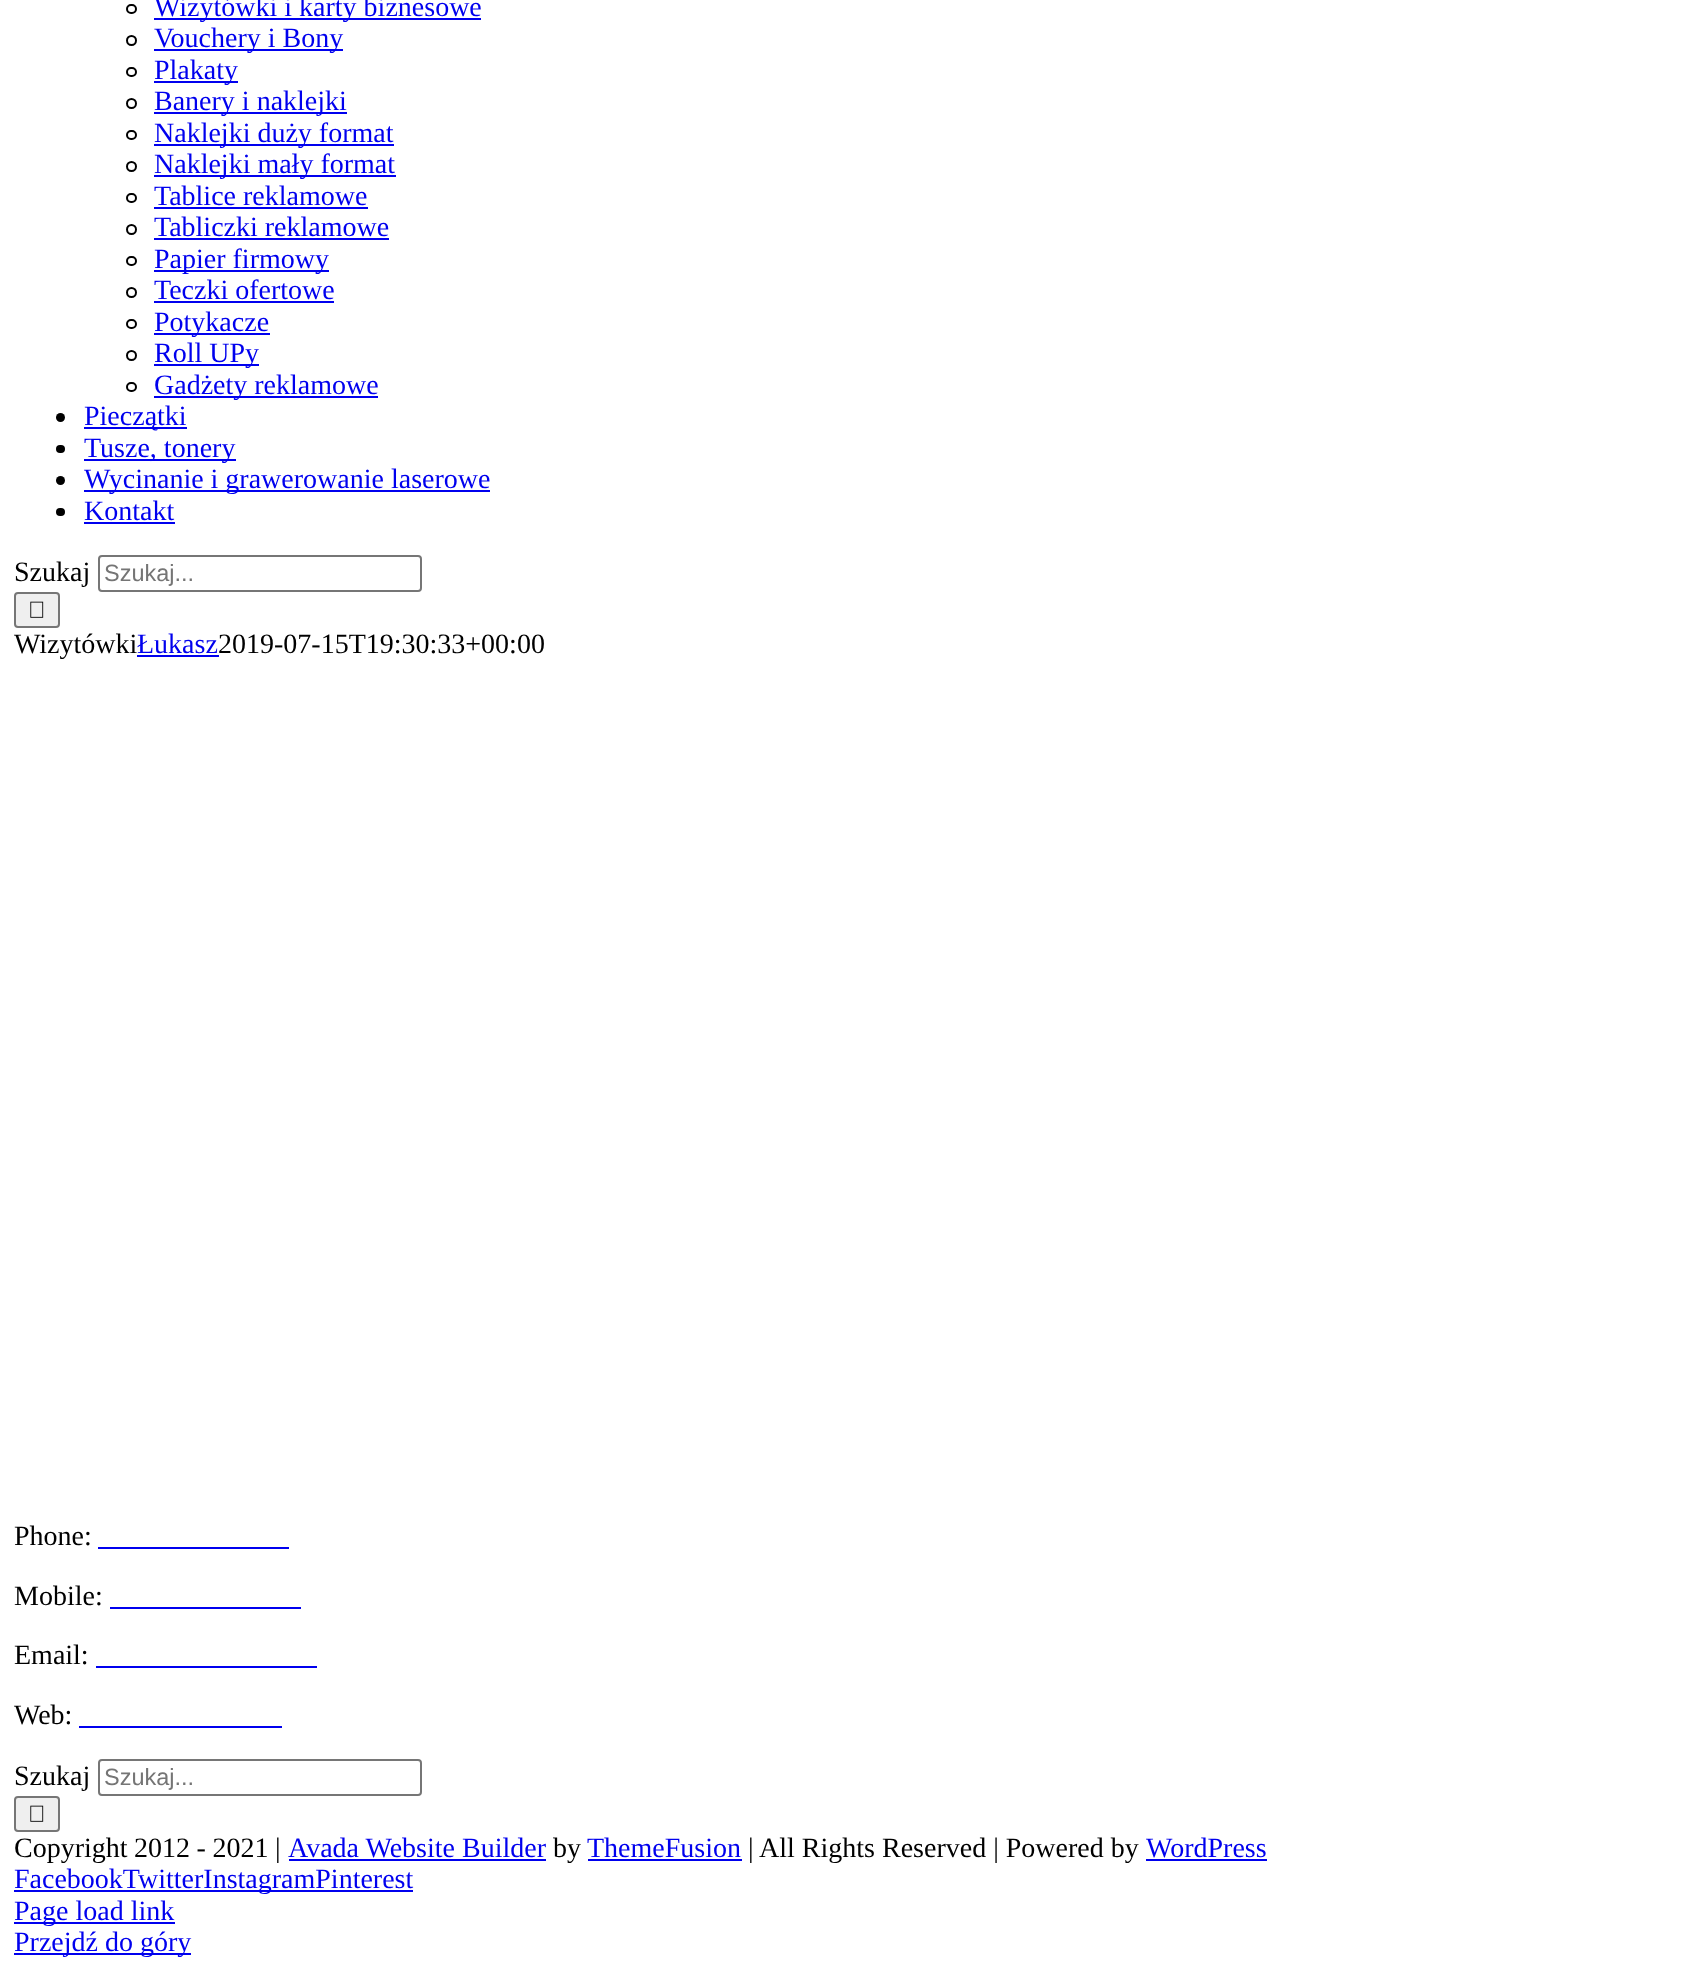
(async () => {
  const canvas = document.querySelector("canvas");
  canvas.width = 1688;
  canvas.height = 1972;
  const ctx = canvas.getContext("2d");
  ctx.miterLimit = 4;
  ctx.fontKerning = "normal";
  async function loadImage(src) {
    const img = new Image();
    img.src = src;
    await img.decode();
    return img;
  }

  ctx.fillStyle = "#ffffff";
  ctx.fillRect(0, 0, 1688, 1972);
  ctx.beginPath();
  ctx.roundRect(127, 5, 9, 8, 4);
  ctx.strokeStyle = "#000000";
  ctx.lineWidth = 2;
  ctx.stroke();
  ctx.fillStyle = "#0000ee";
  ctx.fillRect(154, 18, 327, 2);
  ctx.beginPath();
  ctx.arc(131.5, 40.5, 4.5, 0, Math.PI * 2);
  ctx.stroke();
  ctx.fillRect(154, 49, 189, 2);
  ctx.beginPath();
  ctx.roundRect(127, 68, 9, 8, 4);
  ctx.stroke();
  ctx.fillRect(154, 81, 84, 2);
  ctx.beginPath();
  ctx.arc(131.5, 103.5, 4.5, 0, Math.PI * 2);
  ctx.stroke();
  ctx.fillRect(154, 112, 193, 2);
  ctx.beginPath();
  ctx.roundRect(127, 131, 9, 8, 4);
  ctx.stroke();
  ctx.fillRect(154, 144, 240, 2);
  ctx.beginPath();
  ctx.arc(131.5, 166.5, 4.5, 0, Math.PI * 2);
  ctx.stroke();
  ctx.fillRect(154, 175, 242, 2);
  ctx.beginPath();
  ctx.roundRect(127, 194, 9, 8, 4);
  ctx.stroke();
  ctx.fillRect(154, 207, 214, 2);
  ctx.beginPath();
  ctx.arc(131.5, 229.5, 4.5, 0, Math.PI * 2);
  ctx.stroke();
  ctx.fillRect(154, 238, 235, 2);
  ctx.beginPath();
  ctx.roundRect(127, 257, 9, 8, 4);
  ctx.stroke();
  ctx.fillRect(154, 270, 175, 2);
  ctx.beginPath();
  ctx.arc(131.5, 292.5, 4.5, 0, Math.PI * 2);
  ctx.stroke();
  ctx.fillRect(154, 301, 180, 2);
  ctx.beginPath();
  ctx.roundRect(127, 320, 9, 8, 4);
  ctx.stroke();
  ctx.fillRect(154, 333, 116, 2);
  ctx.beginPath();
  ctx.arc(131.5, 355.5, 4.5, 0, Math.PI * 2);
  ctx.stroke();
  ctx.fillRect(154, 364, 105, 2);
  ctx.beginPath();
  ctx.roundRect(127, 383, 9, 8, 4);
  ctx.stroke();
  ctx.fillRect(154, 396, 224, 2);
  ctx.fillStyle = "#000000";
  ctx.beginPath();
  ctx.arc(60.5, 417.5, 4.5, 0, Math.PI * 2);
  ctx.fill();
  ctx.fillStyle = "#0000ee";
  ctx.fillRect(84, 427, 103, 2);
  ctx.fillStyle = "#000000";
  ctx.beginPath();
  ctx.roundRect(56, 445, 9, 8, 4);
  ctx.fill();
  ctx.fillStyle = "#0000ee";
  ctx.fillRect(84, 459, 152, 2);
  ctx.fillStyle = "#000000";
  ctx.beginPath();
  ctx.arc(60.5, 480.5, 4.5, 0, Math.PI * 2);
  ctx.fill();
  ctx.fillStyle = "#0000ee";
  ctx.fillRect(84, 490, 406, 2);
  ctx.fillStyle = "#000000";
  ctx.beginPath();
  ctx.roundRect(56, 508, 9, 8, 4);
  ctx.fill();
  ctx.fillStyle = "#0000ee";
  ctx.fillRect(84, 522, 91, 2);
  ctx.beginPath();
  ctx.roundRect(99, 556, 322, 35, 3);
  ctx.strokeStyle = "#767676";
  ctx.stroke();
  ctx.fillStyle = "#efefef";
  ctx.beginPath();
  ctx.roundRect(15, 593, 44, 34, 3);
  ctx.fill();
  ctx.stroke();
  ctx.drawImage(await loadImage("img/1.png"), 30, 601, 14, 17);
  for (const [x, y, w, h, color] of [
    [137, 655, 82, 2, "#0000ee"],
    [98, 1547, 191, 2, "#0000ee"],
    [110, 1607, 191, 2, "#0000ee"],
    [96, 1666, 221, 2, "#0000ee"],
    [79, 1726, 203, 2, "#0000ee"],
  ]) {
    ctx.fillStyle = color;
    ctx.fillRect(x, y, w, h);
  }
  ctx.beginPath();
  ctx.roundRect(99, 1760, 322, 35, 3);
  ctx.stroke();
  ctx.fillStyle = "#efefef";
  ctx.beginPath();
  ctx.roundRect(15, 1797, 44, 34, 3);
  ctx.fill();
  ctx.stroke();
  ctx.drawImage(await loadImage("img/1.png"), 30, 1805, 14, 17);
  for (const [x, y, w, h, color] of [
    [289, 1859, 257, 2, "#0000ee"],
    [588, 1859, 154, 2, "#0000ee"],
    [1146, 1859, 121, 2, "#0000ee"],
    [14, 1890, 399, 2, "#0000ee"],
    [14, 1922, 161, 2, "#0000ee"],
    [14, 1953, 177, 2, "#0000ee"],
  ]) {
    ctx.fillStyle = color;
    ctx.fillRect(x, y, w, h);
  }
  ctx.font = "28px Liberation Serif";
  for (const [text, x, y] of [
    ["Wizytówki i karty biznesowe", 154, 16],
    ["Vouchery i Bony", 154, 47],
    ["Plakaty", 154, 79],
    ["Banery i naklejki", 154, 110],
    ["Naklejki duży format", 154, 142],
    ["Naklejki mały format", 154, 173],
    ["Tablice reklamowe", 154, 205],
    ["Tabliczki reklamowe", 154, 236],
    ["Papier firmowy", 154, 268],
    ["Teczki ofertowe", 154, 299],
    ["Potykacze", 154, 331],
    ["Roll UPy", 154, 362],
    ["Gadżety reklamowe", 154, 394],
    ["Pieczątki", 84, 425],
    ["Tusze, tonery", 84, 457],
    ["Wycinanie i grawerowanie laserowe", 84, 488],
    ["Kontakt", 84, 520],
  ]) {
    ctx.fillText(text, x, y);
  }
  ctx.fillStyle = "#000000";
  ctx.fillText("Szukaj", 14, 581);
  ctx.font = "23.5px Liberation Sans";
  ctx.fillStyle = "#757575";
  ctx.fillText("Szukaj...", 104, 581);
  ctx.font = "28px Liberation Serif";
  ctx.fillStyle = "#000000";
  ctx.fillText("Wizytówki", 14, 653);
  ctx.fillStyle = "#0000ee";
  ctx.fillText("Łukasz", 137, 653);
  ctx.fillStyle = "#000000";
  for (const [text, x, y] of [
    ["2019-07-15T19:30:33+00:00", 218, 653],
    ["Phone:", 14, 1545],
    ["Mobile:", 14, 1605],
    ["Email:", 14, 1664],
    ["Web:", 14, 1724],
    ["Szukaj", 14, 1785],
  ]) {
    ctx.fillText(text, x, y);
  }
  ctx.font = "23.5px Liberation Sans";
  ctx.fillStyle = "#757575";
  ctx.fillText("Szukaj...", 104, 1785);
  ctx.wordSpacing = "-0.5px";
  ctx.font = "28px Liberation Serif";
  ctx.fillStyle = "#000000";
  ctx.fillText("Copyright 2012 - 2021 |", 14, 1857);
  ctx.wordSpacing = "0px";
  ctx.fillStyle = "#0000ee";
  ctx.fillText("Avada Website Builder", 288, 1857);
  ctx.fillStyle = "#000000";
  ctx.fillText("by", 553, 1857);
  ctx.fillStyle = "#0000ee";
  ctx.fillText("ThemeFusion", 587, 1857);
  ctx.fillStyle = "#000000";
  ctx.fillText("| All Rights Reserved | Powered by", 748, 1857);
  ctx.fillStyle = "#0000ee";
  for (const [text, x, y] of [
    ["WordPress", 1146, 1857],
    ["FacebookTwitterInstagramPinterest", 14, 1888],
    ["Page load link", 14, 1920],
    ["Przejdź do góry", 14, 1951],
  ]) {
    ctx.fillText(text, x, y);
  }
})();
